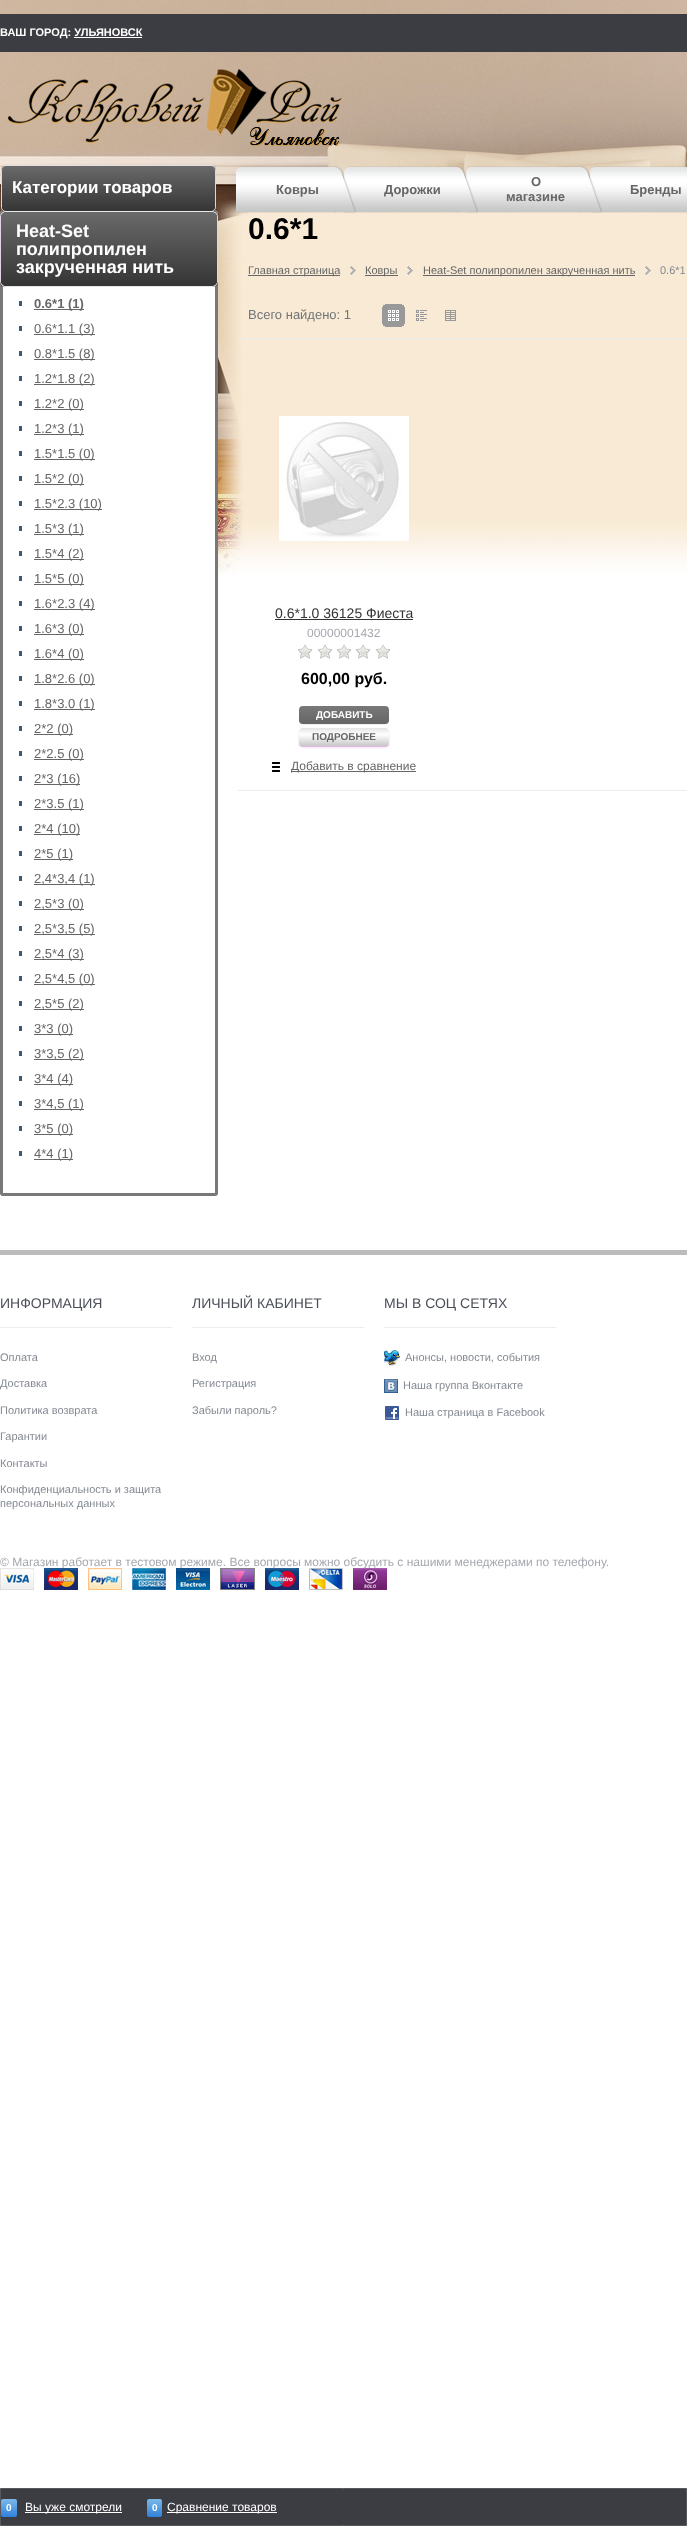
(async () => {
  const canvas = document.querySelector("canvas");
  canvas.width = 687;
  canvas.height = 2526;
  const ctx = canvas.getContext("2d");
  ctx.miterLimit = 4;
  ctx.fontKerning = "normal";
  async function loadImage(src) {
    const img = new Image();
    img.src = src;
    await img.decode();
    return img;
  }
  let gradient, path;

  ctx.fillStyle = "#ffffff";
  ctx.fillRect(0, 0, 687, 2526);
  ctx.drawImage(await loadImage("img/1.png"), 0, 0, 687, 575);
  ctx.fillStyle = "#3c3c43";
  ctx.fillRect(0, 14, 687, 38);
  ctx.fillStyle = "#ffffff";
  ctx.fillRect(74, 37, 68, 1);
  ctx.drawImage(await loadImage("img/2.png"), 8, 69, 334, 77);
  ctx.fillStyle = "#787878";
  ctx.fillRect(1, 208, 215, 3);
  ctx.save();
  ctx.beginPath();
  ctx.roundRect(1, 165, 215, 47, 5);
  ctx.clip();
  gradient = ctx.createLinearGradient(109, 166, 109, 211);
  gradient.addColorStop(0, "#6a6a6a");
  gradient.addColorStop(1, "#353535");
  ctx.fillStyle = gradient;
  ctx.fillRect(1, 166, 215, 45);
  ctx.restore();
  path = new Path2D("M3 167C3.5 166 5 165.5 6 165.5H211C212 165.5 213.5 166 214 167");
  ctx.strokeStyle = "#e4dee4";
  ctx.stroke(path);
  path = new Path2D("M214 167C215 167.5 215.5 169 215.5 170V207C215.5 208 215 209.5 214 210");
  ctx.strokeStyle = "#e5d1e5";
  ctx.stroke(path);
  ctx.fillStyle = "#ffffff";
  ctx.beginPath();
  ctx.roundRect(0, 211, 218, 985, 3);
  ctx.fill();
  ctx.fillStyle = "#787878";
  path = new Path2D("M3 211H215C217 211 218 212 218 214V1193C218 1195 217 1196 215 1196H3C1 1196 0 1195 0 1193V214C0 212 1 211 3 211ZM3 211H215V1193H3Z");
  ctx.fill(path, "evenodd");
  ctx.save();
  ctx.beginPath();
  ctx.roundRect(0, 211, 218, 76, 5);
  ctx.clip();
  gradient = ctx.createLinearGradient(109, 138, 109, 212);
  gradient.addColorStop(0, "#6a6a6a");
  gradient.addColorStop(1, "#353535");
  ctx.fillStyle = gradient;
  ctx.fillRect(0, 211, 218, 1);
  gradient = ctx.createLinearGradient(109, 212, 109, 286);
  gradient.addColorStop(0, "#6a6a6a");
  gradient.addColorStop(1, "#353535");
  ctx.fillStyle = gradient;
  ctx.fillRect(0, 212, 218, 74);
  ctx.restore();
  path = new Path2D("M2 213L4.5 211.5H178.5H213L216 213");
  ctx.strokeStyle = "#e4dee4";
  ctx.stroke(path);
  path = new Path2D("M214 210C213.5 211 212 211.5 211 211.5H6C5 211.5 3.5 211 3 210");
  ctx.strokeStyle = "#e6e6e6";
  ctx.stroke(path);
  path = new Path2D("M3 210C2 209.5 1.5 208 1.5 207V170C1.5 169 2 167.5 3 167");
  ctx.strokeStyle = "#e5d1e5";
  ctx.stroke(path);
  ctx.drawImage(await loadImage("img/3.png"), 236, 166, 23, 47);
  ctx.drawImage(await loadImage("img/6.png"), 344, 166, 23, 47);
  ctx.drawImage(await loadImage("img/4.png"), 334, 166, 22, 47);
  ctx.drawImage(await loadImage("img/5.png"), 259, 166, 77, 47);
  ctx.drawImage(await loadImage("img/9.png"), 466, 166, 23, 47);
  ctx.drawImage(await loadImage("img/7.png"), 456, 166, 22, 47);
  ctx.drawImage(await loadImage("img/8.png"), 367, 166, 91, 47);
  ctx.drawImage(await loadImage("img/12.png"), 590, 166, 23, 47);
  ctx.drawImage(await loadImage("img/10.png"), 580, 166, 22, 47);
  ctx.drawImage(await loadImage("img/11.png"), 489, 166, 93, 47);
  ctx.drawImage(await loadImage("img/13.png"), 613, 166, 74, 47);
  ctx.save();
  ctx.beginPath();
  ctx.roundRect(0, 211, 218, 76, 5);
  ctx.clip();
  gradient = ctx.createLinearGradient(109, 286, 109, 360);
  gradient.addColorStop(0, "#6a6a6a");
  gradient.addColorStop(1, "#353535");
  ctx.fillStyle = gradient;
  ctx.fillRect(0, 286, 218, 1);
  ctx.restore();
  path = new Path2D("M216 213L217.5 215.5V282.5L216 285");
  ctx.stroke(path);
  path = new Path2D("M216 285L213 286.5H4.5L2 285");
  ctx.strokeStyle = "#e6e6e6";
  ctx.stroke(path);
  path = new Path2D("M2 285L.5 282.5V215.5L2 213");
  ctx.strokeStyle = "#e5d1e5";
  ctx.stroke(path);
  for (const [x, y, w, h, color] of [
    [19, 301, 3, 5, "#3d597a"],
    [34, 309, 50, 1, "#666666"],
    [19, 326, 3, 5, "#3d597a"],
    [34, 334, 61, 1, "#666666"],
    [19, 351, 3, 5, "#3d597a"],
    [34, 359, 61, 1, "#666666"],
    [19, 376, 3, 5, "#3d597a"],
    [34, 384, 61, 1, "#666666"],
    [19, 401, 3, 5, "#3d597a"],
    [34, 409, 50, 1, "#666666"],
    [19, 426, 3, 5, "#3d597a"],
    [34, 434, 50, 1, "#666666"],
    [19, 451, 3, 5, "#3d597a"],
    [34, 459, 61, 1, "#666666"],
    [19, 476, 3, 5, "#3d597a"],
    [34, 484, 50, 1, "#666666"],
    [19, 501, 3, 5, "#3d597a"],
    [34, 509, 68, 1, "#666666"],
    [19, 526, 3, 5, "#3d597a"],
    [34, 534, 50, 1, "#666666"],
    [19, 551, 3, 5, "#3d597a"],
    [34, 559, 50, 1, "#666666"],
    [19, 576, 3, 5, "#3d597a"],
    [34, 584, 50, 1, "#666666"],
    [19, 601, 3, 5, "#3d597a"],
    [34, 609, 61, 1, "#666666"],
    [19, 626, 3, 5, "#3d597a"],
    [34, 634, 50, 1, "#666666"],
    [19, 651, 3, 5, "#3d597a"],
    [34, 659, 50, 1, "#666666"],
    [19, 676, 3, 5, "#3d597a"],
    [34, 684, 61, 1, "#666666"],
    [19, 701, 3, 5, "#3d597a"],
    [34, 709, 61, 1, "#666666"],
    [19, 726, 3, 5, "#3d597a"],
    [34, 734, 39, 1, "#666666"],
    [19, 751, 3, 5, "#3d597a"],
    [34, 759, 50, 1, "#666666"],
    [19, 776, 3, 5, "#3d597a"],
    [34, 784, 46, 1, "#666666"],
    [19, 801, 3, 5, "#3d597a"],
    [34, 809, 50, 1, "#666666"],
    [19, 826, 3, 5, "#3d597a"],
    [34, 834, 46, 1, "#666666"],
    [19, 851, 3, 5, "#3d597a"],
    [34, 859, 39, 1, "#666666"],
    [19, 876, 3, 5, "#3d597a"],
    [34, 884, 61, 1, "#666666"],
    [19, 901, 3, 5, "#3d597a"],
    [34, 909, 50, 1, "#666666"],
    [19, 926, 3, 5, "#3d597a"],
    [34, 934, 61, 1, "#666666"],
    [19, 951, 3, 5, "#3d597a"],
    [34, 959, 50, 1, "#666666"],
    [19, 976, 3, 5, "#3d597a"],
    [34, 984, 61, 1, "#666666"],
    [19, 1001, 3, 5, "#3d597a"],
    [34, 1009, 50, 1, "#666666"],
    [19, 1026, 3, 5, "#3d597a"],
    [34, 1034, 39, 1, "#666666"],
    [19, 1051, 3, 5, "#3d597a"],
    [34, 1059, 50, 1, "#666666"],
    [19, 1076, 3, 5, "#3d597a"],
    [34, 1084, 39, 1, "#666666"],
    [19, 1101, 3, 5, "#3d597a"],
    [34, 1109, 50, 1, "#666666"],
    [19, 1126, 3, 5, "#3d597a"],
    [34, 1134, 39, 1, "#666666"],
    [19, 1151, 3, 5, "#3d597a"],
    [34, 1159, 39, 1, "#666666"],
    [248, 275, 92, 1, "#666666"],
  ]) {
    ctx.fillStyle = color;
    ctx.fillRect(x, y, w, h);
  }
  ctx.drawImage(await loadImage("img/14.png"), 350, 266, 6, 9);
  ctx.fillRect(365, 275, 33, 1);
  ctx.drawImage(await loadImage("img/14.png"), 407, 266, 6, 9);
  ctx.fillRect(423, 275, 212, 1);
  ctx.drawImage(await loadImage("img/14.png"), 645, 266, 6, 9);
  ctx.drawImage(await loadImage("img/15.png"), 382, 304, 23, 23);
  ctx.drawImage(await loadImage("img/16.png"), 416, 310, 11, 11);
  ctx.drawImage(await loadImage("img/17.png"), 445, 310, 11, 11);
  ctx.fillStyle = "#ebeef1";
  ctx.fillRect(238, 338, 449, 1);
  ctx.fillRect(238, 790, 449, 1);
  ctx.drawImage(await loadImage("img/18.png"), 279, 416, 130, 125);
  ctx.fillStyle = "#333333";
  ctx.fillRect(275, 619, 138, 1);
  ctx.drawImage(await loadImage("img/19.png"), 297, 644, 16, 15);
  ctx.drawImage(await loadImage("img/19.png"), 317, 644, 16, 15);
  ctx.drawImage(await loadImage("img/19.png"), 336, 644, 16, 15);
  ctx.drawImage(await loadImage("img/19.png"), 355, 644, 16, 15);
  ctx.drawImage(await loadImage("img/19.png"), 375, 644, 16, 15);
  ctx.fillStyle = "#eeeeee";
  ctx.filter = "blur(0.5px)";
  ctx.beginPath();
  ctx.roundRect(299, 707, 90, 18, 4);
  ctx.fill();
  ctx.filter = "none";
  gradient = ctx.createLinearGradient(344, 706, 344, 724);
  gradient.addColorStop(0, "#787878");
  gradient.addColorStop(1, "#666666");
  ctx.fillStyle = gradient;
  ctx.beginPath();
  ctx.roundRect(299, 706, 90, 18, 4);
  ctx.fill();
  ctx.fillStyle = "#f6e3f6";
  ctx.filter = "blur(1px)";
  ctx.beginPath();
  ctx.roundRect(299, 729, 90, 19, 4);
  ctx.fill();
  ctx.filter = "none";
  ctx.save();
  ctx.beginPath();
  ctx.roundRect(299, 728, 90, 19, 4);
  ctx.clip();
  gradient = ctx.createLinearGradient(344, 728, 344, 746);
  gradient.addColorStop(0, "#e3e4e4");
  gradient.addColorStop(0.36, "#ffffff");
  gradient.addColorStop(1, "#c7c7c8");
  ctx.fillStyle = gradient;
  ctx.beginPath();
  ctx.roundRect(299, 728, 90, 18, [4, 4, 0, 0]);
  ctx.fill();
  ctx.restore();
  ctx.fillStyle = "#e5b8e5";
  ctx.fillRect(301, 746, 86, 1);
  ctx.drawImage(await loadImage("img/20.png"), 272, 762, 8, 10);
  for (const [x, y, w, h, color] of [
    [291, 771, 125, 1, "#666666"],
    [0, 1250, 687, 5, "#bcbcbc"],
    [0, 1327, 172, 1, "#ededee"],
    [192, 1327, 172, 1, "#ededee"],
    [384, 1327, 172, 1, "#ededee"],
  ]) {
    ctx.fillStyle = color;
    ctx.fillRect(x, y, w, h);
  }
  ctx.drawImage(await loadImage("img/21.png"), 384, 1350, 16, 16);
  ctx.drawImage(await loadImage("img/22.png"), 384, 1379, 14, 14);
  ctx.drawImage(await loadImage("img/23.png"), 385, 1406, 14, 14);
  ctx.fillStyle = "#3c3c43";
  ctx.beginPath();
  ctx.rect(0.5, 2488.5, 686, 37);
  ctx.fill();
  ctx.strokeStyle = "#57575e";
  ctx.stroke();
  gradient = ctx.createLinearGradient(9, 2499, 9, 2517);
  gradient.addColorStop(0, "#7ab7e8");
  gradient.addColorStop(0.33, "#64a8e4");
  gradient.addColorStop(0.75, "#428edf");
  gradient.addColorStop(1, "#3082db");
  ctx.fillStyle = gradient;
  ctx.beginPath();
  ctx.roundRect(1, 2499, 16, 18, 2);
  ctx.fill();
  ctx.fillStyle = "#ffffff";
  ctx.fillRect(25, 2512, 97, 1);
  gradient = ctx.createLinearGradient(155, 2499, 155, 2517);
  gradient.addColorStop(0, "#7ab7e8");
  gradient.addColorStop(0.33, "#64a8e4");
  gradient.addColorStop(0.75, "#428edf");
  gradient.addColorStop(1, "#3082db");
  ctx.fillStyle = gradient;
  ctx.beginPath();
  ctx.roundRect(147, 2499, 15, 18, 2);
  ctx.fill();
  ctx.fillStyle = "#ffffff";
  ctx.fillRect(167, 2512, 110, 1);
  ctx.font = "bold 11px Liberation Sans";
  ctx.fillText("ВАШ ГОРОД: УЛЬЯНОВСК", 0, 36);
  ctx.font = "bold 17px Liberation Sans";
  ctx.fillText("Категории товаров", 12, 193);
  ctx.font = "bold 13px Liberation Sans";
  ctx.fillStyle = "#666666";
  for (const [text, x, y] of [
    ["Ковры", 276, 194],
    ["Дорожки", 384, 194],
    ["О", 531, 186],
    ["магазине", 506, 201],
    ["Бренды", 630, 194],
  ]) {
    ctx.fillText(text, x, y);
  }
  ctx.font = "bold 18px Liberation Sans";
  ctx.fillStyle = "#ffffff";
  for (const [text, x, y] of [
    ["Heat-Set", 16, 237],
    ["полипропилен", 16, 255],
    ["закрученная нить", 16, 273],
  ]) {
    ctx.fillText(text, x, y);
  }
  ctx.font = "bold 13px Liberation Sans";
  ctx.fillStyle = "#666666";
  ctx.fillText("0.6*1 (1)", 34, 308);
  ctx.font = "13px Liberation Sans";
  for (const [text, x, y] of [
    ["0.6*1.1 (3)", 34, 333],
    ["0.8*1.5 (8)", 34, 358],
    ["1.2*1.8 (2)", 34, 383],
    ["1.2*2 (0)", 34, 408],
    ["1.2*3 (1)", 34, 433],
    ["1.5*1.5 (0)", 34, 458],
    ["1.5*2 (0)", 34, 483],
    ["1.5*2.3 (10)", 34, 508],
    ["1.5*3 (1)", 34, 533],
    ["1.5*4 (2)", 34, 558],
    ["1.5*5 (0)", 34, 583],
    ["1.6*2.3 (4)", 34, 608],
    ["1.6*3 (0)", 34, 633],
    ["1.6*4 (0)", 34, 658],
    ["1.8*2.6 (0)", 34, 683],
    ["1.8*3.0 (1)", 34, 708],
    ["2*2 (0)", 34, 733],
    ["2*2.5 (0)", 34, 758],
    ["2*3 (16)", 34, 783],
    ["2*3.5 (1)", 34, 808],
    ["2*4 (10)", 34, 833],
    ["2*5 (1)", 34, 858],
    ["2,4*3,4 (1)", 34, 883],
    ["2,5*3 (0)", 34, 908],
    ["2,5*3,5 (5)", 34, 933],
    ["2,5*4 (3)", 34, 958],
    ["2,5*4,5 (0)", 34, 983],
    ["2,5*5 (2)", 34, 1008],
    ["3*3 (0)", 34, 1033],
    ["3*3,5 (2)", 34, 1058],
    ["3*4 (4)", 34, 1083],
    ["3*4,5 (1)", 34, 1108],
    ["3*5 (0)", 34, 1133],
    ["4*4 (1)", 34, 1158],
  ]) {
    ctx.fillText(text, x, y);
  }
  ctx.font = "bold 30px Liberation Sans";
  ctx.fillStyle = "#000000";
  ctx.fillText("0.6*1", 248, 239);
  ctx.font = "11px Liberation Sans";
  ctx.fillStyle = "#666666";
  for (const [text, x, y] of [
    ["Главная страница", 248, 274],
    ["Ковры", 365, 274],
    ["Heat-Set полипропилен закрученная нить", 423, 274],
  ]) {
    ctx.fillText(text, x, y);
  }
  ctx.fillStyle = "#848992";
  ctx.fillText("0.6*1", 660, 274);
  ctx.font = "13px Liberation Sans";
  ctx.fillStyle = "#717478";
  ctx.fillText("Всего найдено: 1", 248, 319);
  ctx.font = "14px Liberation Sans";
  ctx.fillStyle = "#333333";
  ctx.fillText("0.6*1.0 36125 Фиеста", 275, 618);
  ctx.font = "12px Liberation Sans";
  ctx.fillStyle = "#a5a8af";
  ctx.fillText("00000001432", 307, 637);
  ctx.font = "bold 16px Liberation Sans";
  ctx.fillStyle = "#000000";
  ctx.fillText("600,00 руб.", 301, 684);
  ctx.font = "bold 10px Liberation Sans";
  ctx.fillStyle = "#ffffff";
  ctx.fillText("ДОБАВИТЬ", 316, 718);
  ctx.fillStyle = "#666666";
  ctx.fillText("ПОДРОБНЕЕ", 312, 740);
  ctx.font = "12px Liberation Sans";
  ctx.fillText("Добавить в сравнение", 291, 770);
  ctx.font = "14px Liberation Sans";
  ctx.fillStyle = "#4b4f58";
  ctx.fillText("ИНФОРМАЦИЯ", 0, 1308);
  ctx.font = "11px Liberation Sans";
  ctx.fillStyle = "#848992";
  for (const [text, x, y] of [
    ["Оплата", 0, 1361],
    ["Доставка", 0, 1387],
    ["Политика возврата", 0, 1414],
    ["Гарантии", 0, 1440],
    ["Контакты", 0, 1467],
    ["Конфиденциальность и защита", 0, 1493],
    ["персональных данных", 0, 1507],
  ]) {
    ctx.fillText(text, x, y);
  }
  ctx.font = "14px Liberation Sans";
  ctx.fillStyle = "#4b4f58";
  ctx.fillText("ЛИЧНЫЙ КАБИНЕТ", 192, 1308);
  ctx.font = "11px Liberation Sans";
  ctx.fillStyle = "#848992";
  for (const [text, x, y] of [
    ["Вход", 192, 1361],
    ["Регистрация", 192, 1387],
    ["Забыли пароль?", 192, 1414],
  ]) {
    ctx.fillText(text, x, y);
  }
  ctx.font = "14px Liberation Sans";
  ctx.fillStyle = "#4b4f58";
  ctx.fillText("МЫ В СОЦ СЕТЯХ", 384, 1308);
  ctx.font = "11px Liberation Sans";
  ctx.fillStyle = "#848992";
  for (const [text, x, y] of [
    ["Анонсы, новости, события", 405, 1361],
    ["Наша группа Вконтакте", 403, 1389],
    ["Наша страница в Facebook", 405, 1416],
  ]) {
    ctx.fillText(text, x, y);
  }
  ctx.font = "12px Liberation Sans";
  ctx.fillStyle = "#a5a8af";
  ctx.fillText("© Магазин работает в тестовом режиме. Все вопросы можно обсудить с нашими менеджерами по телефону.", 0, 1566);
  ctx.drawImage(await loadImage("img/24.png"), 0, 1568, 387, 22);
  ctx.font = "bold 10px Liberation Sans";
  ctx.fillStyle = "#ffffff";
  ctx.fillText("0", 6, 2511);
  ctx.font = "12px Liberation Sans";
  ctx.fillText("Вы уже смотрели", 25, 2511);
  ctx.font = "bold 10px Liberation Sans";
  ctx.fillText("0", 152, 2511);
  ctx.font = "12px Liberation Sans";
  ctx.fillText("Сравнение товаров", 167, 2511);
})();
